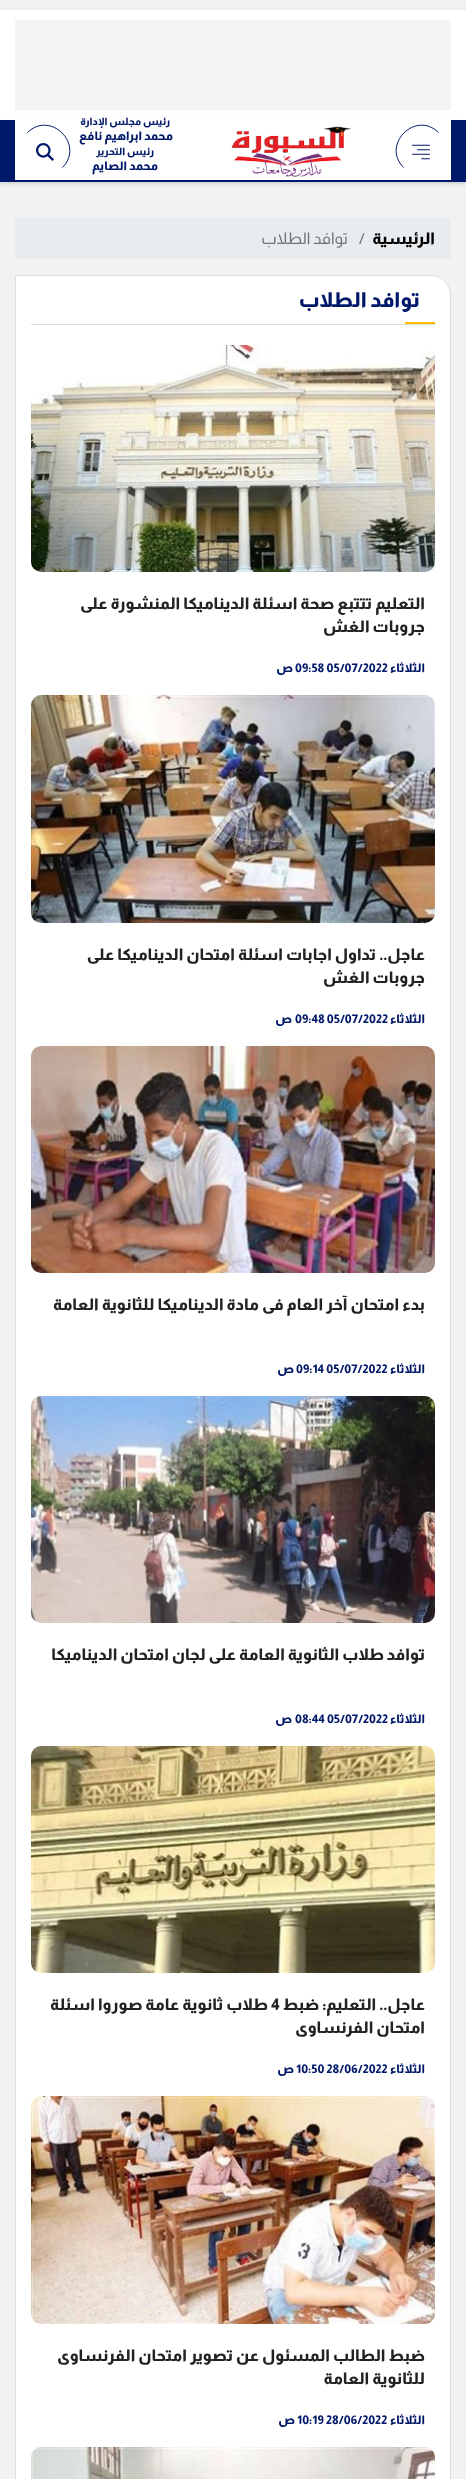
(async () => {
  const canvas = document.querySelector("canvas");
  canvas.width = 466;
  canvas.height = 2479;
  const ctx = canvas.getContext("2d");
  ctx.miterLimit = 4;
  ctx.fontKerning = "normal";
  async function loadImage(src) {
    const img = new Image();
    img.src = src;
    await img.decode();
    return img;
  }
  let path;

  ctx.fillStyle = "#f2f2f2";
  ctx.fillRect(0, 0, 466, 2479);
  ctx.fillStyle = "rgba(0, 0, 0, 0.07)";
  ctx.filter = "blur(2px)";
  ctx.beginPath();
  ctx.rect(0, 12, 466, 172);
  ctx.fill();
  ctx.filter = "none";
  ctx.fillStyle = "#ffffff";
  ctx.fillRect(0, 10, 466, 110);
  ctx.fillStyle = "#f4f4f4";
  ctx.fillRect(15, 20, 436, 90);
  ctx.fillStyle = "rgba(0, 0, 0, 0.07)";
  ctx.filter = "blur(2px)";
  ctx.beginPath();
  ctx.rect(0, 122, 466, 62);
  ctx.fill();
  ctx.filter = "none";
  ctx.fillStyle = "#001869";
  ctx.fillRect(0, 120, 466, 62);
  ctx.fillStyle = "#ffffff";
  ctx.fillRect(15, 120, 436, 60);
  path = new Path2D("M403.5 167.5C381 144.5 415.5 110 438.5 132.5");
  ctx.strokeStyle = "#001869";
  ctx.stroke(path);
  ctx.drawImage(await loadImage("img/1.png"), 412, 144, 18, 16);
  ctx.drawImage(await loadImage("img/2.png"), 231, 126, 120, 51);
  path = new Path2D("M27.5 132.5C50.5 110 85 144.5 62.5 167.5");
  ctx.stroke(path);
  ctx.drawImage(await loadImage("img/3.png"), 36, 143, 18, 18);
  ctx.fillStyle = "#e9ecef";
  ctx.fillRect(15, 218, 436, 41);
  ctx.fillStyle = "#ffffff";
  path = new Path2D("M15.5 275.5H431C442 275.5 450.5 284 450.5 295V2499.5H35C24 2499.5 15.5 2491 15.5 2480Z");
  ctx.fill(path);
  ctx.strokeStyle = "#dcdcdc";
  ctx.stroke(path);
  ctx.fillStyle = "#dcdcdc";
  ctx.fillRect(31, 324, 404, 1);
  ctx.fillStyle = "#ffbd00";
  ctx.fillRect(405, 322, 30, 2);
  ctx.drawImage(await loadImage("img/4.png"), 31, 345, 404, 227);
  ctx.drawImage(await loadImage("img/5.png"), 31, 695, 404, 228);
  ctx.drawImage(await loadImage("img/6.png"), 31, 1046, 404, 227);
  ctx.drawImage(await loadImage("img/7.png"), 31, 1396, 404, 227);
  ctx.drawImage(await loadImage("img/8.png"), 31, 1746, 404, 227);
  ctx.drawImage(await loadImage("img/9.png"), 31, 2096, 404, 228);
  ctx.drawImage(await loadImage("img/10.png"), 31, 2447, 404, 32);
  ctx.direction = "rtl";
  ctx.font = "800 10px Almarai";
  ctx.fillStyle = "#001869";
  ctx.fillText("رئيس مجلس الإدارة", 170, 125);
  ctx.font = "800 12px Almarai";
  ctx.fillText("محمد ابراهيم نافع", 173, 140);
  ctx.font = "800 10px Almarai";
  ctx.fillText("رئيس التحرير", 154, 155);
  ctx.font = "800 12px Almarai";
  ctx.fillText("محمد الصايم", 158, 170);
  ctx.font = "800 16px Almarai";
  ctx.fillStyle = "#000000";
  ctx.fillText("الرئيسية", 435, 244);
  ctx.direction = "ltr";
  ctx.font = "16px Almarai";
  ctx.fillStyle = "#6c757d";
  ctx.fillText("/", 359, 244);
  ctx.direction = "rtl";
  ctx.fillText("توافد الطلاب", 348, 244);
  ctx.font = "800 20.75px Almarai";
  ctx.fillStyle = "#001869";
  ctx.fillText("توافد الطلاب", 420, 307);
  ctx.font = "800 16px Almarai";
  ctx.fillStyle = "#222222";
  ctx.fillText("التعليم تتتبع صحة اسئلة الديناميكا المنشورة على", 425, 609);
  ctx.fillText("جروبات الغش", 425, 632);
  ctx.font = "800 12px Almarai";
  ctx.fillStyle = "#001869";
  ctx.fillText("الثلاثاء", 425, 672);
  ctx.direction = "ltr";
  ctx.fillText("09:58 05/07/2022", 295, 672);
  ctx.direction = "rtl";
  ctx.fillText("ص", 293, 672);
  ctx.font = "800 16px Almarai";
  ctx.fillStyle = "#222222";
  ctx.fillText("عاجل.. تداول اجابات اسئلة امتحان الديناميكا على", 425, 960);
  ctx.fillText("جروبات الغش", 425, 983);
  ctx.font = "800 12px Almarai";
  ctx.fillStyle = "#001869";
  ctx.fillText("الثلاثاء", 425, 1023);
  ctx.direction = "ltr";
  ctx.fillText("09:48 05/07/2022", 295, 1023);
  ctx.direction = "rtl";
  ctx.fillText("ص", 292, 1023);
  ctx.font = "800 16px Almarai";
  ctx.fillStyle = "#222222";
  ctx.fillText("بدء امتحان آخر العام فى مادة الديناميكا للثانوية العامة", 425, 1310);
  ctx.font = "800 12px Almarai";
  ctx.fillStyle = "#001869";
  ctx.fillText("الثلاثاء", 425, 1373);
  ctx.direction = "ltr";
  ctx.fillText("09:14 05/07/2022", 296, 1373);
  ctx.direction = "rtl";
  ctx.fillText("ص", 294, 1373);
  ctx.font = "800 16px Almarai";
  ctx.fillStyle = "#222222";
  ctx.fillText("توافد طلاب الثانوية العامة على لجان امتحان الديناميكا", 425, 1660);
  ctx.font = "800 12px Almarai";
  ctx.fillStyle = "#001869";
  ctx.fillText("الثلاثاء", 425, 1723);
  ctx.direction = "ltr";
  ctx.fillText("08:44 05/07/2022", 295, 1723);
  ctx.direction = "rtl";
  ctx.fillText("ص", 292, 1723);
  ctx.font = "800 16px Almarai";
  ctx.fillStyle = "#222222";
  ctx.fillText("عاجل.. التعليم: ضبط", 425, 2010);
  ctx.direction = "ltr";
  ctx.fillText("4", 271, 2010);
  ctx.direction = "rtl";
  ctx.fillText("طلاب ثانوية عامة صوروا اسئلة", 268, 2010);
  ctx.fillText("امتحان الفرنساوى", 425, 2033);
  ctx.font = "800 12px Almarai";
  ctx.fillStyle = "#001869";
  ctx.fillText("الثلاثاء", 425, 2073);
  ctx.direction = "ltr";
  ctx.fillText("10:50 28/06/2022", 296, 2073);
  ctx.direction = "rtl";
  ctx.fillText("ص", 294, 2073);
  ctx.font = "800 16px Almarai";
  ctx.fillStyle = "#222222";
  ctx.fillText("ضبط الطالب المسئول عن تصوير امتحان الفرنساوى", 425, 2361);
  ctx.fillText("للثانوية العامة", 425, 2384);
  ctx.font = "800 12px Almarai";
  ctx.fillStyle = "#001869";
  ctx.fillText("الثلاثاء", 425, 2424);
  ctx.direction = "ltr";
  ctx.fillText("10:19 28/06/2022", 297, 2424);
  ctx.direction = "rtl";
  ctx.fillText("ص", 295, 2424);
})();
